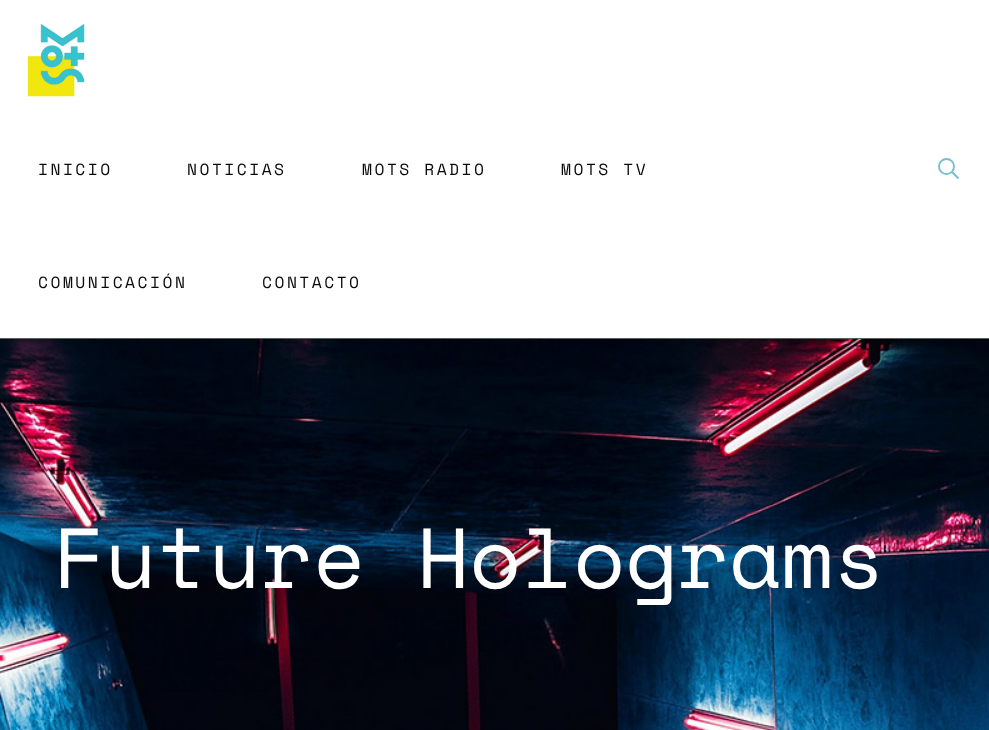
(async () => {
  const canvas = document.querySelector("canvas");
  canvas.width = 989;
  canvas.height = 730;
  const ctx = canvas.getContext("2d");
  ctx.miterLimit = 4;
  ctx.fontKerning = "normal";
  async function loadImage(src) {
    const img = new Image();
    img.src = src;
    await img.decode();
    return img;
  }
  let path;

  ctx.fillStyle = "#ffffff";
  ctx.fillRect(0, 0, 989, 730);
  ctx.drawImage(await loadImage("img/1.png"), 0, 339, 989, 391);
  ctx.fillStyle = "#55605a";
  ctx.fillRect(0, 338, 989, 1);
  ctx.drawImage(await loadImage("img/2.png"), 27, 23, 58, 74);
  ctx.beginPath();
  ctx.arc(946.5, 166.5, 7.5, 0, Math.PI * 2);
  ctx.strokeStyle = "#75c0cc";
  ctx.lineWidth = 1.9;
  ctx.stroke();
  path = new Path2D("M952 172L958.5 178.5");
  ctx.stroke(path);
  ctx.letterSpacing = "2.5px";
  ctx.font = "16.25px Space Mono";
  ctx.fillStyle = "#0a0a0a";
  for (const [text, x, y] of [
    ["INICIO", 38, 175],
    ["NOTICIAS", 187, 175],
    ["MOTS RADIO", 362, 175],
    ["MOTS TV", 561, 175],
    ["COMUNICACIÓN", 38, 288],
    ["CONTACTO", 262, 288],
  ]) {
    ctx.fillText(text, x, y);
  }
  ctx.letterSpacing = "0px";
  ctx.font = "85px Space Mono";
  ctx.fillStyle = "#ffffff";
  ctx.fillText("Future Holograms", 53, 588);
})();
